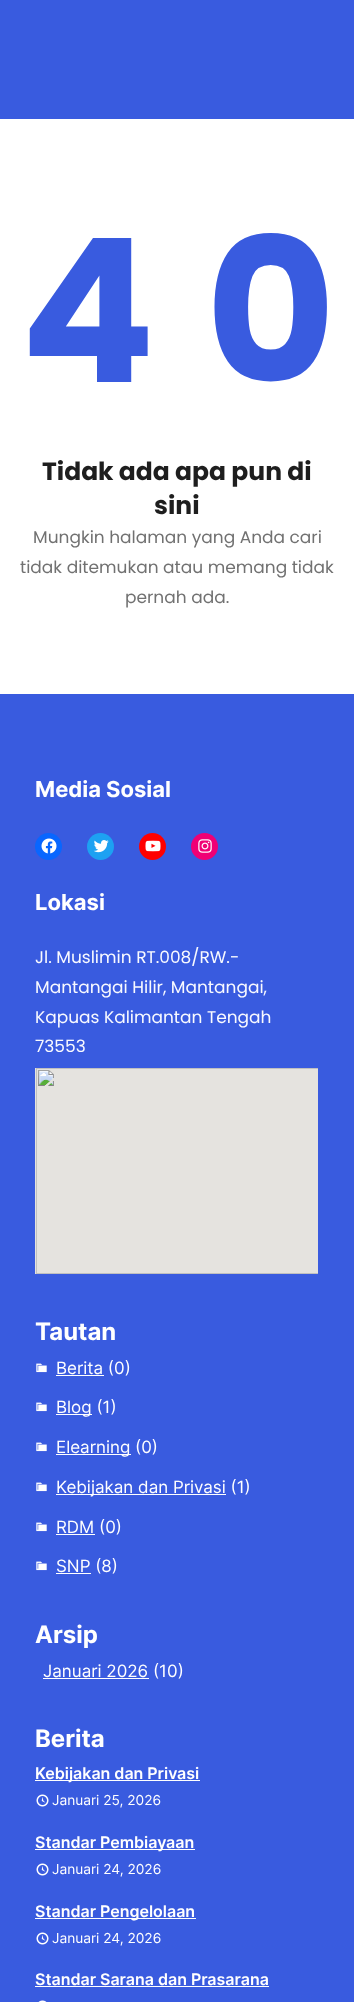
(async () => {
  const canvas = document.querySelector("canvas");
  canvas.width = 354;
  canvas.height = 2002;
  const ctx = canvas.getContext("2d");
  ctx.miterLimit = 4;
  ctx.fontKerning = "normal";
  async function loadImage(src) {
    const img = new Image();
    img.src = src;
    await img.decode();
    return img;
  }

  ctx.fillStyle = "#ffffff";
  ctx.fillRect(0, 0, 354, 2002);
  ctx.fillStyle = "#395bdf";
  ctx.fillRect(0, 0, 354, 119);
  ctx.fillRect(0, 694, 354, 1308);
  ctx.fillStyle = "#0866ff";
  ctx.beginPath();
  ctx.arc(48.5, 846.5, 13.5, 0, Math.PI * 2);
  ctx.fill();
  ctx.drawImage(await loadImage("img/1.png"), 41, 838, 16, 16);
  ctx.fillStyle = "#1da1f2";
  ctx.beginPath();
  ctx.arc(100.5, 846.5, 13.5, 0, Math.PI * 2);
  ctx.fill();
  ctx.drawImage(await loadImage("img/2.png"), 93, 840, 16, 13);
  ctx.fillStyle = "#ff0000";
  ctx.beginPath();
  ctx.arc(152.5, 846.5, 13.5, 0, Math.PI * 2);
  ctx.fill();
  ctx.drawImage(await loadImage("img/3.png"), 145, 840, 16, 12);
  ctx.fillStyle = "#f00075";
  ctx.beginPath();
  ctx.arc(204.5, 846.5, 13.5, 0, Math.PI * 2);
  ctx.fill();
  ctx.drawImage(await loadImage("img/4.png"), 198, 839, 14, 14);
  ctx.drawImage(await loadImage("img/5.png"), 35, 1068, 283, 206);
  ctx.drawImage(await loadImage("img/6.png"), 36, 1363, 11, 10);
  ctx.fillStyle = "#ffffff";
  ctx.fillRect(56, 1375, 48, 1);
  ctx.drawImage(await loadImage("img/6.png"), 36, 1402, 11, 10);
  ctx.fillRect(56, 1414, 36, 1);
  ctx.drawImage(await loadImage("img/6.png"), 36, 1442, 11, 10);
  ctx.fillRect(56, 1454, 75, 1);
  ctx.drawImage(await loadImage("img/6.png"), 36, 1482, 11, 10);
  ctx.fillRect(56, 1494, 170, 1);
  ctx.drawImage(await loadImage("img/6.png"), 36, 1522, 11, 10);
  ctx.fillRect(56, 1534, 39, 1);
  ctx.drawImage(await loadImage("img/6.png"), 36, 1561, 11, 10);
  for (const [x, y, w, h, color] of [
    [56, 1573, 35, 1, "#ffffff"],
    [43, 1678, 106, 1, "#ffffff"],
    [35, 1780, 165, 1, "#ffffff"],
  ]) {
    ctx.fillStyle = color;
    ctx.fillRect(x, y, w, h);
  }
  ctx.drawImage(await loadImage("img/7.png"), 36, 1794, 13, 13);
  ctx.fillRect(35, 1849, 160, 1);
  ctx.drawImage(await loadImage("img/7.png"), 36, 1863, 13, 13);
  ctx.fillRect(35, 1918, 161, 1);
  ctx.drawImage(await loadImage("img/7.png"), 36, 1932, 13, 13);
  ctx.fillRect(35, 1986, 234, 1);
  ctx.drawImage(await loadImage("img/8.png"), 38, 2000, 9, 2);
  ctx.letterSpacing = "50px";
  ctx.font = "bold 200px Poppins";
  ctx.fillStyle = "#395bdf";
  ctx.fillText("40", 20, 382);
  ctx.letterSpacing = "0px";
  ctx.font = "bold 25px Poppins";
  ctx.fillStyle = "#1e1e1e";
  ctx.fillText("Tidak ada apa pun di", 42, 480);
  ctx.fillText("sini", 154, 514);
  ctx.font = "17px Poppins";
  ctx.fillStyle = "#717171";
  for (const [text, x, y] of [
    ["Mungkin halaman yang Anda cari", 33, 543],
    ["tidak ditemukan atau memang tidak", 20, 573],
    ["pernah ada.", 125, 603],
  ]) {
    ctx.fillText(text, x, y);
  }
  ctx.font = "bold 22px Inter";
  ctx.fillStyle = "#ffffff";
  ctx.fillText("Media Sosial", 35, 797);
  ctx.fillText("Lokasi", 35, 910);
  ctx.font = "17px Poppins";
  ctx.fillStyle = "#f9faff";
  for (const [text, x, y] of [
    ["Jl. Muslimin RT.008/RW.-", 35, 963],
    ["Mantangai Hilir, Mantangai,", 35, 993],
    ["Kapuas Kalimantan Tengah", 35, 1023],
    ["73553", 35, 1052],
  ]) {
    ctx.fillText(text, x, y);
  }
  ctx.font = "bold 24px Inter";
  ctx.fillStyle = "#ffffff";
  ctx.fillText("Tautan", 35, 1340);
  ctx.font = "17px Inter";
  for (const [text, x, y] of [
    ["Berita (0)", 56, 1374],
    ["Blog (1)", 56, 1413],
    ["Elearning (0)", 56, 1453],
    ["Kebijakan dan Privasi (1)", 56, 1493],
    ["RDM (0)", 56, 1533],
    ["SNP (8)", 56, 1572],
  ]) {
    ctx.fillText(text, x, y);
  }
  ctx.font = "bold 24px Inter";
  ctx.fillText("Arsip", 35, 1643);
  ctx.font = "17px Inter";
  ctx.fillText("Januari 2026 (10)", 43, 1677);
  ctx.font = "bold 24px Inter";
  ctx.fillText("Berita", 35, 1747);
  ctx.font = "600 16px Inter";
  ctx.fillText("Kebijakan dan Privasi", 35, 1779);
  ctx.font = "13.75px Inter";
  ctx.fillText("Januari 25, 2026", 52, 1805);
  ctx.font = "600 16px Inter";
  ctx.fillText("Standar Pembiayaan", 35, 1848);
  ctx.font = "13.75px Inter";
  ctx.fillText("Januari 24, 2026", 52, 1874);
  ctx.font = "600 16px Inter";
  ctx.fillText("Standar Pengelolaan", 35, 1917);
  ctx.font = "13.75px Inter";
  ctx.fillText("Januari 24, 2026", 52, 1943);
  ctx.font = "600 16px Inter";
  ctx.fillText("Standar Sarana dan Prasarana", 35, 1985);
})();
